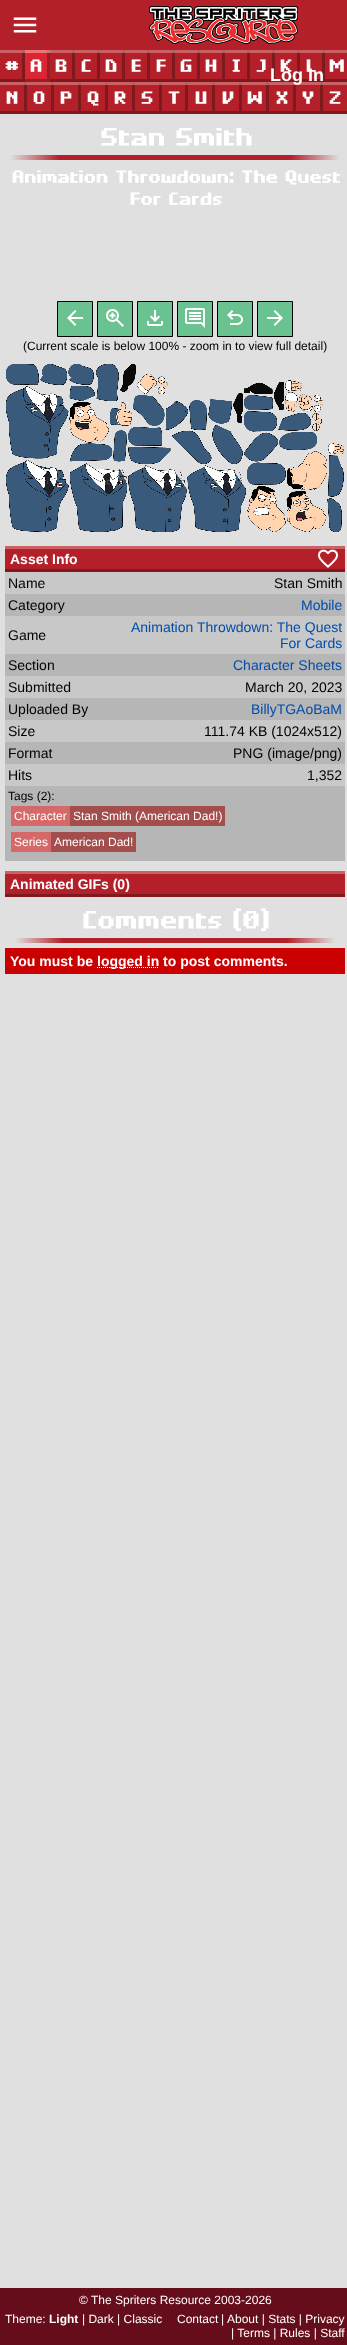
(async () => {
  const canvas = document.querySelector("canvas");
  canvas.width = 347;
  canvas.height = 2345;
  const ctx = canvas.getContext("2d");
  ctx.miterLimit = 4;
  ctx.fontKerning = "normal";
  async function loadImage(src) {
    const img = new Image();
    img.src = src;
    await img.decode();
    return img;
  }
  let gradient, path;

  ctx.fillStyle = "#e0e0e0";
  ctx.fillRect(0, 0, 347, 2345);
  ctx.fillStyle = "#b4202a";
  ctx.fillRect(0, 0, 347, 111);
  ctx.save();
  ctx.beginPath();
  ctx.rect(0, 50, 25, 32);
  ctx.clip();
  ctx.fillStyle = "#7f191d";
  path = new Path2D("M-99-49H124V181H-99ZM-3 47H22V79H-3Z");
  ctx.fill(path, "evenodd");
  ctx.restore();
  ctx.fillStyle = "rgba(220, 140, 140, 0.6)";
  ctx.fillRect(0, 50, 25, 3);
  ctx.fillStyle = "#d82632";
  ctx.fillRect(25, 50, 22, 29);
  ctx.save();
  ctx.beginPath();
  ctx.rect(25, 50, 25, 32);
  ctx.clip();
  ctx.fillStyle = "#981e22";
  path = new Path2D("M-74-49H149V181H-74ZM22 47H47V79H22Z");
  ctx.fill(path, "evenodd");
  ctx.restore();
  ctx.fillStyle = "rgba(255, 168, 168, 0.6)";
  ctx.fillRect(25, 50, 25, 3);
  ctx.save();
  ctx.beginPath();
  ctx.rect(50, 50, 25, 32);
  ctx.clip();
  ctx.fillStyle = "#7f191d";
  path = new Path2D("M-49-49H174V181H-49ZM47 47H72V79H47Z");
  ctx.fill(path, "evenodd");
  ctx.restore();
  ctx.fillStyle = "rgba(220, 140, 140, 0.6)";
  ctx.fillRect(50, 50, 25, 3);
  ctx.save();
  ctx.beginPath();
  ctx.rect(75, 50, 25, 32);
  ctx.clip();
  ctx.fillStyle = "#7f191d";
  path = new Path2D("M-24-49H199V181H-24ZM72 47H97V79H72Z");
  ctx.fill(path, "evenodd");
  ctx.restore();
  ctx.fillRect(75, 50, 25, 3);
  ctx.save();
  ctx.beginPath();
  ctx.rect(100, 50, 25, 32);
  ctx.clip();
  ctx.fillStyle = "#7f191d";
  path = new Path2D("M1-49H224V181H1ZM97 47H122V79H97Z");
  ctx.fill(path, "evenodd");
  ctx.restore();
  ctx.fillRect(100, 50, 25, 3);
  ctx.save();
  ctx.beginPath();
  ctx.rect(125, 50, 25, 32);
  ctx.clip();
  ctx.fillStyle = "#7f191d";
  path = new Path2D("M26-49H249V181H26ZM122 47H147V79H122Z");
  ctx.fill(path, "evenodd");
  ctx.restore();
  ctx.fillRect(125, 50, 25, 3);
  ctx.save();
  ctx.beginPath();
  ctx.rect(150, 50, 25, 32);
  ctx.clip();
  ctx.fillStyle = "#7f191d";
  path = new Path2D("M51-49H274V181H51ZM147 47H172V79H147Z");
  ctx.fill(path, "evenodd");
  ctx.restore();
  ctx.fillRect(150, 50, 25, 3);
  ctx.save();
  ctx.beginPath();
  ctx.rect(175, 50, 25, 32);
  ctx.clip();
  ctx.fillStyle = "#7f191d";
  path = new Path2D("M76-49H299V181H76ZM172 47H197V79H172Z");
  ctx.fill(path, "evenodd");
  ctx.restore();
  ctx.fillRect(175, 50, 25, 3);
  ctx.save();
  ctx.beginPath();
  ctx.rect(200, 50, 25, 32);
  ctx.clip();
  ctx.fillStyle = "#7f191d";
  path = new Path2D("M101-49H324V181H101ZM197 47H222V79H197Z");
  ctx.fill(path, "evenodd");
  ctx.restore();
  ctx.fillRect(200, 50, 25, 3);
  ctx.save();
  ctx.beginPath();
  ctx.rect(225, 50, 25, 32);
  ctx.clip();
  ctx.fillStyle = "#7f191d";
  path = new Path2D("M126-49H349V181H126ZM222 47H247V79H222Z");
  ctx.fill(path, "evenodd");
  ctx.restore();
  ctx.fillRect(225, 50, 25, 3);
  ctx.save();
  ctx.beginPath();
  ctx.rect(250, 50, 25, 32);
  ctx.clip();
  ctx.fillStyle = "#7f191d";
  path = new Path2D("M151-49H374V181H151ZM247 47H272V79H247Z");
  ctx.fill(path, "evenodd");
  ctx.restore();
  ctx.fillRect(250, 50, 25, 3);
  ctx.save();
  ctx.beginPath();
  ctx.rect(275, 50, 25, 32);
  ctx.clip();
  ctx.fillStyle = "#7f191d";
  path = new Path2D("M176-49H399V181H176ZM272 47H297V79H272Z");
  ctx.fill(path, "evenodd");
  ctx.restore();
  ctx.fillRect(275, 50, 25, 3);
  ctx.save();
  ctx.beginPath();
  ctx.rect(300, 50, 25, 32);
  ctx.clip();
  ctx.fillStyle = "#7f191d";
  path = new Path2D("M201-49H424V181H201ZM297 47H322V79H297Z");
  ctx.fill(path, "evenodd");
  ctx.restore();
  ctx.fillRect(300, 50, 25, 3);
  ctx.save();
  ctx.beginPath();
  ctx.rect(325, 50, 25, 32);
  ctx.clip();
  ctx.fillStyle = "#7f191d";
  path = new Path2D("M226-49H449V181H226ZM322 47H347V79H322Z");
  ctx.fill(path, "evenodd");
  ctx.restore();
  ctx.fillStyle = "#cc6165";
  ctx.fillRect(325, 50, 22, 3);
  ctx.save();
  ctx.beginPath();
  ctx.rect(0, 82, 27, 32);
  ctx.clip();
  ctx.fillStyle = "#7f191d";
  path = new Path2D("M-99-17H126V213H-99ZM-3 79H24V111H-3Z");
  ctx.fill(path, "evenodd");
  ctx.restore();
  ctx.fillStyle = "rgba(220, 140, 140, 0.6)";
  ctx.fillRect(0, 82, 27, 3);
  ctx.save();
  ctx.beginPath();
  ctx.rect(27, 82, 27, 32);
  ctx.clip();
  ctx.fillStyle = "#7f191d";
  path = new Path2D("M-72-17H153V213H-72ZM24 79H51V111H24Z");
  ctx.fill(path, "evenodd");
  ctx.restore();
  ctx.fillRect(27, 82, 27, 3);
  ctx.save();
  ctx.beginPath();
  ctx.rect(54, 82, 27, 32);
  ctx.clip();
  ctx.fillStyle = "#7f191d";
  path = new Path2D("M-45-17H180V213H-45ZM51 79H78V111H51Z");
  ctx.fill(path, "evenodd");
  ctx.restore();
  ctx.fillRect(54, 82, 27, 3);
  ctx.save();
  ctx.beginPath();
  ctx.rect(81, 82, 27, 32);
  ctx.clip();
  ctx.fillStyle = "#7f191d";
  path = new Path2D("M-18-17H207V213H-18ZM78 79H105V111H78Z");
  ctx.fill(path, "evenodd");
  ctx.restore();
  ctx.fillRect(81, 82, 27, 3);
  ctx.save();
  ctx.beginPath();
  ctx.rect(108, 82, 27, 32);
  ctx.clip();
  ctx.fillStyle = "#7f191d";
  path = new Path2D("M9-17H234V213H9ZM105 79H132V111H105Z");
  ctx.fill(path, "evenodd");
  ctx.restore();
  ctx.fillRect(108, 82, 27, 3);
  ctx.save();
  ctx.beginPath();
  ctx.rect(135, 82, 27, 32);
  ctx.clip();
  ctx.fillStyle = "#7f191d";
  path = new Path2D("M36-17H261V213H36ZM132 79H159V111H132Z");
  ctx.fill(path, "evenodd");
  ctx.restore();
  ctx.fillRect(135, 82, 27, 3);
  ctx.save();
  ctx.beginPath();
  ctx.rect(162, 82, 26, 32);
  ctx.clip();
  ctx.fillStyle = "#7f191d";
  path = new Path2D("M63-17H287V213H63ZM159 79H185V111H159Z");
  ctx.fill(path, "evenodd");
  ctx.restore();
  ctx.fillRect(162, 82, 26, 3);
  ctx.save();
  ctx.beginPath();
  ctx.rect(188, 82, 27, 32);
  ctx.clip();
  ctx.fillStyle = "#7f191d";
  path = new Path2D("M89-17H314V213H89ZM185 79H212V111H185Z");
  ctx.fill(path, "evenodd");
  ctx.restore();
  ctx.fillRect(188, 82, 27, 3);
  ctx.save();
  ctx.beginPath();
  ctx.rect(215, 82, 27, 32);
  ctx.clip();
  ctx.fillStyle = "#7f191d";
  path = new Path2D("M116-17H341V213H116ZM212 79H239V111H212Z");
  ctx.fill(path, "evenodd");
  ctx.restore();
  ctx.fillRect(215, 82, 27, 3);
  ctx.save();
  ctx.beginPath();
  ctx.rect(242, 82, 27, 32);
  ctx.clip();
  ctx.fillStyle = "#7f191d";
  path = new Path2D("M143-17H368V213H143ZM239 79H266V111H239Z");
  ctx.fill(path, "evenodd");
  ctx.restore();
  ctx.fillRect(242, 82, 27, 3);
  ctx.save();
  ctx.beginPath();
  ctx.rect(269, 82, 27, 32);
  ctx.clip();
  ctx.fillStyle = "#7f191d";
  path = new Path2D("M170-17H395V213H170ZM266 79H293V111H266Z");
  ctx.fill(path, "evenodd");
  ctx.restore();
  ctx.fillRect(269, 82, 27, 3);
  ctx.save();
  ctx.beginPath();
  ctx.rect(296, 82, 27, 32);
  ctx.clip();
  ctx.fillStyle = "#7f191d";
  path = new Path2D("M197-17H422V213H197ZM293 79H320V111H293Z");
  ctx.fill(path, "evenodd");
  ctx.restore();
  ctx.fillRect(296, 82, 27, 3);
  ctx.save();
  ctx.beginPath();
  ctx.rect(323, 82, 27, 32);
  ctx.clip();
  ctx.fillStyle = "#7f191d";
  path = new Path2D("M224-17H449V213H224ZM320 79H347V111H320Z");
  ctx.fill(path, "evenodd");
  ctx.restore();
  ctx.fillStyle = "#cc6165";
  ctx.fillRect(323, 82, 24, 3);
  gradient = ctx.createLinearGradient(10, 158, 340, 158);
  gradient.addColorStop(0, "#e0e0e0");
  gradient.addColorStop(0.15, "#b4202a");
  gradient.addColorStop(0.85, "#b4202a");
  gradient.addColorStop(1, "#e0e0e0");
  ctx.fillStyle = gradient;
  ctx.fillRect(10, 155, 330, 5);
  ctx.fillStyle = "#69c290";
  ctx.beginPath();
  ctx.rect(57.5, 301.5, 35, 35);
  ctx.fill();
  ctx.strokeStyle = "#000000";
  ctx.stroke();
  ctx.drawImage(await loadImage("img/1.png"), 67, 310, 16, 16);
  ctx.beginPath();
  ctx.rect(97.5, 301.5, 35, 35);
  ctx.fill();
  ctx.stroke();
  ctx.drawImage(await loadImage("img/2.png"), 106, 309, 18, 18);
  ctx.beginPath();
  ctx.rect(137.5, 301.5, 35, 35);
  ctx.fill();
  ctx.stroke();
  ctx.drawImage(await loadImage("img/3.png"), 147, 310, 16, 16);
  ctx.beginPath();
  ctx.rect(177.5, 301.5, 35, 35);
  ctx.fill();
  ctx.stroke();
  ctx.drawImage(await loadImage("img/4.png"), 185, 308, 20, 20);
  ctx.beginPath();
  ctx.rect(217.5, 301.5, 35, 35);
  ctx.fill();
  ctx.stroke();
  ctx.drawImage(await loadImage("img/5.png"), 227, 310, 16, 15);
  ctx.beginPath();
  ctx.rect(257.5, 301.5, 35, 35);
  ctx.fill();
  ctx.stroke();
  ctx.drawImage(await loadImage("img/6.png"), 267, 310, 16, 16);
  ctx.drawImage(await loadImage("img/7.png"), 6, 364, 338, 168);
  for (const [x, y, w, h, color] of [
    [5, 549, 340, 20, "#b4202a"],
    [5, 569, 340, 3, "#7f191d"],
    [5, 546, 340, 3, "#cc6165"],
  ]) {
    ctx.fillStyle = color;
    ctx.fillRect(x, y, w, h);
  }
  ctx.drawImage(await loadImage("img/8.png"), 318, 549, 20, 19);
  for (const [x, y, w, h, color] of [
    [5, 572, 340, 22, "#c8c8c8"],
    [5, 594, 340, 22, "#b6b6b6"],
    [5, 616, 340, 38, "#c8c8c8"],
    [5, 654, 340, 22, "#b6b6b6"],
    [5, 676, 340, 22, "#c8c8c8"],
    [5, 698, 340, 22, "#b6b6b6"],
    [5, 720, 340, 22, "#c8c8c8"],
    [5, 742, 340, 22, "#b6b6b6"],
    [5, 764, 340, 22, "#c8c8c8"],
    [5, 786, 340, 75, "#b6b6b6"],
    [70, 806, 155, 20, "#a34d4d"],
    [11, 806, 59, 20, "#d56868"],
    [51, 832, 85, 20, "#a34d4d"],
    [11, 832, 40, 20, "#d56868"],
    [5, 874, 340, 20, "#b4202a"],
    [5, 894, 340, 3, "#7f191d"],
    [5, 871, 340, 3, "#cc6165"],
  ]) {
    ctx.fillStyle = color;
    ctx.fillRect(x, y, w, h);
  }
  gradient = ctx.createLinearGradient(15, 941, 335, 941);
  gradient.addColorStop(0, "#e0e0e0");
  gradient.addColorStop(0.15, "#b4202a");
  gradient.addColorStop(0.85, "#b4202a");
  gradient.addColorStop(1, "#e0e0e0");
  ctx.fillStyle = gradient;
  ctx.fillRect(15, 938, 320, 5);
  ctx.fillStyle = "#cb0000";
  ctx.fillRect(5, 948, 340, 26);
  path = new Path2D("M97 967.5H159");
  ctx.strokeStyle = "#ffffff";
  ctx.setLineDash([1, 1]);
  ctx.stroke(path);
  ctx.fillStyle = "#650d1b";
  ctx.fillRect(0, 2288, 347, 57);
  ctx.drawImage(await loadImage("img/9.png"), 13, 17, 24, 16);
  ctx.drawImage(await loadImage("img/10.png"), 149, 6, 149, 38);
  ctx.font = "14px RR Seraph";
  ctx.fillStyle = "#ffffff";
  for (const [text, x, y] of [
    ["#", 4, 70],
    ["A", 29, 70],
    ["B", 54, 70],
    ["C", 80, 70],
    ["D", 104, 70],
    ["E", 130, 70],
    ["F", 155, 70],
    ["G", 179, 70],
    ["H", 204, 70],
    ["I", 231, 70],
    ["J", 255, 70],
    ["K", 279, 70],
    ["L", 305, 70],
    ["M", 328, 70],
    ["N", 5, 102],
    ["O", 32, 102],
    ["P", 59, 102],
    ["Q", 86, 102],
    ["R", 113, 102],
    ["S", 140, 102],
    ["T", 167, 102],
    ["U", 194, 102],
    ["V", 221, 102],
    ["W", 246, 102],
    ["X", 275, 102],
    ["Y", 301, 102],
    ["Z", 328, 102],
  ]) {
    ctx.fillText(text, x, y);
  }
  ctx.font = "20px RR Seraph";
  ctx.fillText("Stan Smith", 99, 143);
  ctx.font = "14px RR Seraph";
  ctx.fillText("Animation Throwdown: The Quest", 11, 181);
  ctx.fillText("For Cards", 129, 203);
  ctx.font = "12px Liberation Sans";
  ctx.fillStyle = "#000000";
  ctx.fillText("(Current scale is below 100% - zoom in to view full detail)", 23, 350);
  ctx.font = "bold 14px Liberation Sans";
  ctx.fillStyle = "#ffffff";
  ctx.fillText("Asset Info", 10, 564);
  ctx.font = "14px Liberation Sans";
  ctx.fillStyle = "#000000";
  for (const [text, x, y] of [
    ["Name", 8, 588],
    ["Stan Smith", 274, 588],
    ["Category", 8, 610],
  ]) {
    ctx.fillText(text, x, y);
  }
  ctx.fillStyle = "#004cab";
  ctx.fillText("Mobile", 301, 610);
  ctx.fillStyle = "#000000";
  ctx.fillText("Game", 8, 640);
  ctx.fillStyle = "#004cab";
  ctx.fillText("Animation Throwdown: The Quest", 131, 632);
  ctx.fillText("For Cards", 280, 648);
  ctx.fillStyle = "#000000";
  ctx.fillText("Section", 8, 670);
  ctx.fillStyle = "#004cab";
  ctx.fillText("Character Sheets", 233, 670);
  ctx.fillStyle = "#000000";
  for (const [text, x, y] of [
    ["Submitted", 8, 692],
    ["March 20, 2023", 245, 692],
    ["Uploaded By", 8, 714],
  ]) {
    ctx.fillText(text, x, y);
  }
  ctx.fillStyle = "#004cab";
  ctx.fillText("BillyTGAoBaM", 251, 714);
  ctx.fillStyle = "#000000";
  for (const [text, x, y] of [
    ["Size", 8, 736],
    ["111.74 KB (1024x512)", 204, 736],
    ["Format", 8, 758],
    ["PNG (image/png)", 233, 758],
    ["Hits", 8, 780],
    ["1,352", 307, 780],
  ]) {
    ctx.fillText(text, x, y);
  }
  ctx.font = "12px Liberation Sans";
  ctx.fillText("Tags (2):", 8, 800);
  ctx.fillStyle = "#ffffff";
  for (const [text, x, y] of [
    ["Character", 14, 820],
    ["Stan Smith (American Dad!)", 73, 820],
    ["Series", 14, 846],
    ["American Dad!", 54, 846],
  ]) {
    ctx.fillText(text, x, y);
  }
  ctx.font = "bold 14px Liberation Sans";
  ctx.fillText("Animated GIFs (0)", 10, 889);
  ctx.font = "20px RR Seraph";
  ctx.fillText("Comments (0)", 81, 926);
  ctx.font = "bold 14px Liberation Sans";
  ctx.fillText("You must be", 10, 966);
  ctx.fillText("logged in to post comments.", 97, 966);
  ctx.font = "12px Liberation Sans";
  ctx.fillText("© The Spriters Resource 2003-2026", 79, 2304);
  ctx.fillText("Theme:", 5, 2323);
  ctx.font = "bold 12px Liberation Sans";
  ctx.fillText("Light", 49, 2323);
  ctx.font = "12px Liberation Sans";
  for (const [text, x, y] of [
    ["| Dark | Classic", 82, 2323],
    ["Contact", 177, 2323],
    ["|", 221, 2323],
    ["About | Stats | Privacy", 227, 2323],
    ["| Terms | Rules | Staff", 231, 2337],
  ]) {
    ctx.fillText(text, x, y);
  }
  ctx.font = "bold 18px Liberation Sans";
  ctx.fillText("Log In", 270, 81);
})();
